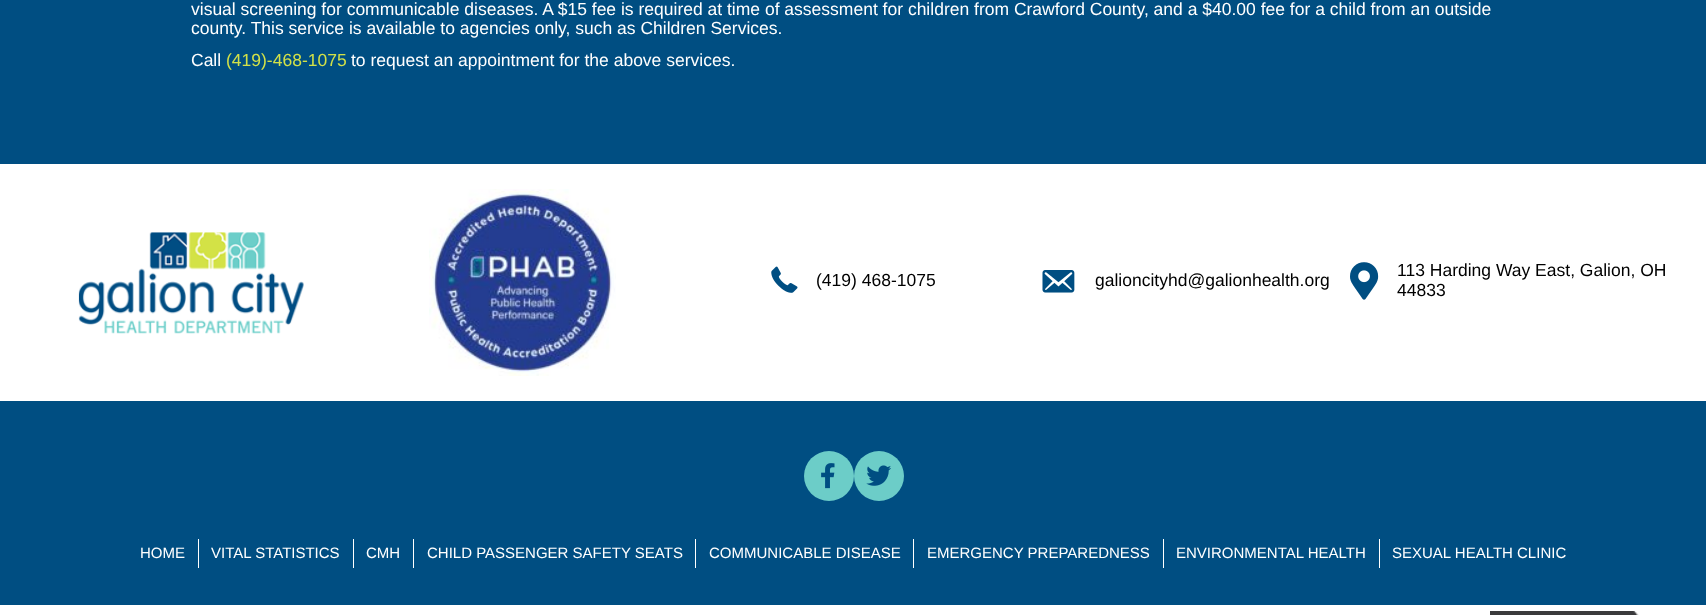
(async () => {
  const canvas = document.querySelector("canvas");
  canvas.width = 1706;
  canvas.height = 615;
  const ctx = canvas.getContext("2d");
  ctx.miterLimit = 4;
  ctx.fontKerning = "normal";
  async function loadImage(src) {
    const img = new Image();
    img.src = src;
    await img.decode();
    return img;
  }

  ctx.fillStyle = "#004e82";
  ctx.fillRect(0, 0, 1706, 615);
  ctx.fillStyle = "#ffffff";
  ctx.fillRect(0, 164, 1706, 237);
  ctx.drawImage(await loadImage("img/1.png"), 78, 232, 226, 102);
  ctx.drawImage(await loadImage("img/2.png"), 429, 189, 187, 187);
  ctx.drawImage(await loadImage("img/3.png"), 771, 266, 27, 27);
  ctx.drawImage(await loadImage("img/4.png"), 1042, 270, 33, 23);
  ctx.drawImage(await loadImage("img/5.png"), 1350, 262, 29, 38);
  ctx.fillStyle = "#6ccdc8";
  ctx.beginPath();
  ctx.arc(829, 476, 25, 0, Math.PI * 2);
  ctx.fill();
  ctx.drawImage(await loadImage("img/6.png"), 821, 463, 14, 26);
  ctx.beginPath();
  ctx.arc(879, 476, 25, 0, Math.PI * 2);
  ctx.fill();
  ctx.drawImage(await loadImage("img/7.png"), 866, 465, 25, 21);
  for (const [x, y, w, h, color] of [
    [198, 539, 1, 29, "#ffffff"],
    [353, 539, 1, 29, "#ffffff"],
    [413, 539, 1, 29, "#ffffff"],
    [695, 539, 1, 29, "#ffffff"],
    [913, 539, 1, 29, "#ffffff"],
    [1163, 539, 1, 29, "#ffffff"],
    [1379, 539, 1, 29, "#ffffff"],
    [0, 605, 1706, 10, "#ffffff"],
  ]) {
    ctx.fillStyle = color;
    ctx.fillRect(x, y, w, h);
  }
  ctx.drawImage(await loadImage("img/8.png"), 1490, 611, 149, 4);
  ctx.font = "17.5px Liberation Sans";
  for (const [text, x, y] of [
    ["visual screening for communicable diseases. A $15 fee is required at time of assessment for children from Crawford County, and a $40.00 fee for a child from an outside", 191, 15],
    ["county. This service is available to agencies only, such as Children Services.", 191, 34],
    ["Call", 191, 66],
  ]) {
    ctx.fillText(text, x, y);
  }
  ctx.fillStyle = "#d2e148";
  ctx.fillText("(419)-468-1075", 226, 66);
  ctx.fillStyle = "#ffffff";
  ctx.fillText("to request an appointment for the above services.", 351, 66);
  ctx.fillStyle = "#000000";
  for (const [text, x, y] of [
    ["(419) 468-1075", 816, 286],
    ["galioncityhd@galionhealth.org", 1095, 286],
    ["113 Harding Way East, Galion, OH", 1397, 276],
    ["44833", 1397, 296],
  ]) {
    ctx.fillText(text, x, y);
  }
  ctx.font = "15px Liberation Sans";
  ctx.fillStyle = "#ffffff";
  for (const [text, x, y] of [
    ["HOME", 140, 558],
    ["VITAL STATISTICS", 211, 558],
    ["CMH", 366, 558],
    ["CHILD PASSENGER SAFETY SEATS", 427, 558],
    ["COMMUNICABLE DISEASE", 709, 558],
    ["EMERGENCY PREPAREDNESS", 927, 558],
    ["ENVIRONMENTAL HEALTH", 1176, 558],
    ["SEXUAL HEALTH CLINIC", 1392, 558],
  ]) {
    ctx.fillText(text, x, y);
  }
})();
